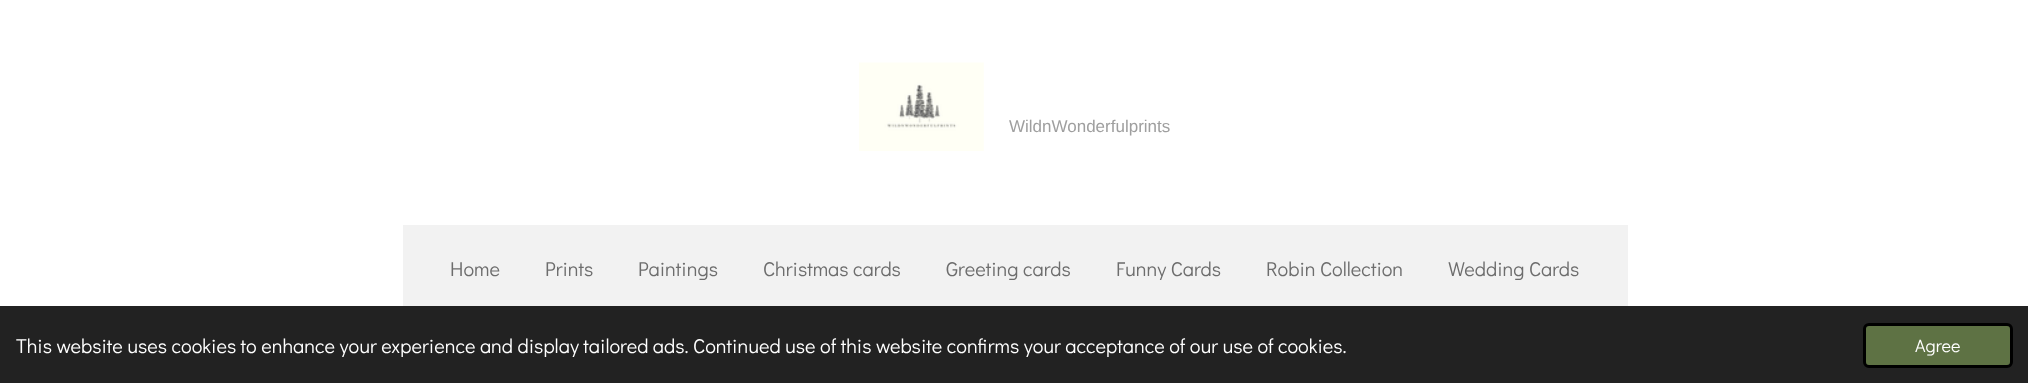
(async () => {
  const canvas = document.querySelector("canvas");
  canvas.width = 2028;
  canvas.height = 383;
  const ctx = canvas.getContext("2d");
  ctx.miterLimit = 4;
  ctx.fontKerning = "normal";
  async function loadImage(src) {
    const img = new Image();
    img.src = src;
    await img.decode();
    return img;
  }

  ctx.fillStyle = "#ffffff";
  ctx.fillRect(0, 0, 2028, 383);
  ctx.drawImage(await loadImage("img/1.png"), 859, 62, 125, 89);
  ctx.fillStyle = "#f2f2f2";
  ctx.fillRect(403, 225, 1225, 81);
  ctx.fillStyle = "#222222";
  ctx.fillRect(0, 306, 2028, 77);
  ctx.fillStyle = "#5e7244";
  ctx.beginPath();
  ctx.roundRect(1864.5, 324.5, 147, 42, 4.5);
  ctx.fill();
  ctx.strokeStyle = "#000000";
  ctx.lineWidth = 3;
  ctx.stroke();
  ctx.font = "17px Arimo";
  ctx.fillStyle = "#9f9f9f";
  ctx.fillText("WildnWonderfulprints", 1009, 132);
  ctx.font = "20px Didact Gothic";
  ctx.fillStyle = "#6d6d6d";
  for (const [text, x, y] of [
    ["Home", 450, 276],
    ["Prints", 545, 276],
    ["Paintings", 638, 276],
    ["Christmas cards", 763, 276],
    ["Greeting cards", 946, 276],
    ["Funny Cards", 1116, 276],
    ["Robin Collection", 1266, 276],
    ["Wedding Cards", 1448, 276],
  ]) {
    ctx.fillText(text, x, y);
  }
  ctx.fillStyle = "#ffffff";
  ctx.fillText("This website uses cookies to enhance your experience and display tailored ads. Continued use of this website confirms your acceptance of our use of cookies.", 16, 353);
  ctx.font = "18px Didact Gothic";
  ctx.fillText("Agree", 1915, 352);
})();
